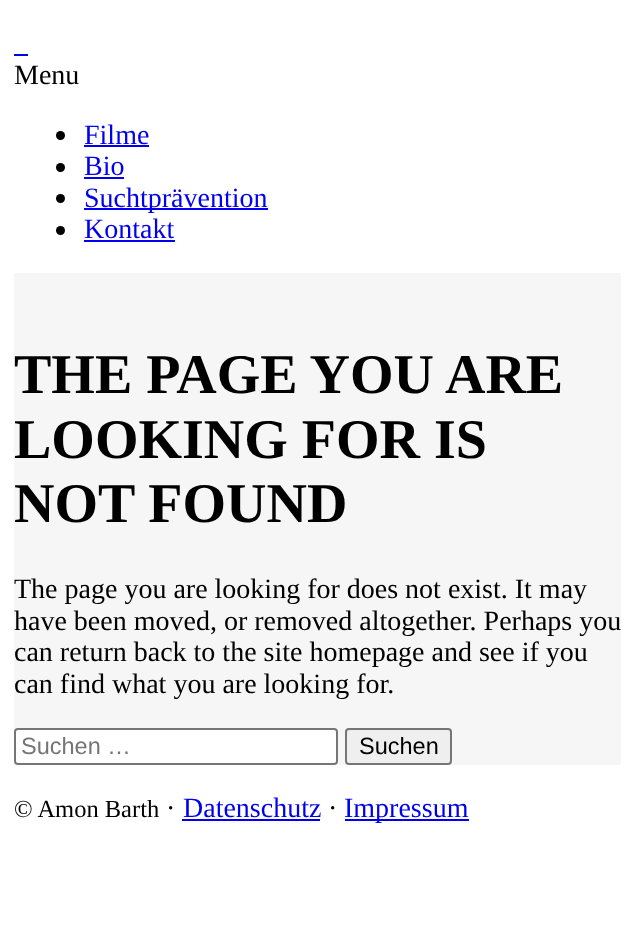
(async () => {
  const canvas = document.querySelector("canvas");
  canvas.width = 634;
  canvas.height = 938;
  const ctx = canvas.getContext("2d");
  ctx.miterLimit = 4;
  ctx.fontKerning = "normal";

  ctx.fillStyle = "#ffffff";
  ctx.fillRect(0, 0, 634, 938);
  ctx.fillStyle = "#0000ee";
  ctx.fillRect(14, 54, 14, 2);
  ctx.fillStyle = "#000000";
  ctx.beginPath();
  ctx.arc(60.5, 135.5, 4.5, 0, Math.PI * 2);
  ctx.fill();
  ctx.fillStyle = "#0000ee";
  ctx.fillRect(84, 145, 65, 2);
  ctx.fillStyle = "#000000";
  ctx.beginPath();
  ctx.arc(60.5, 167.5, 4.5, 0, Math.PI * 2);
  ctx.fill();
  ctx.fillStyle = "#0000ee";
  ctx.fillRect(84, 177, 40, 2);
  ctx.fillStyle = "#000000";
  ctx.beginPath();
  ctx.arc(60.5, 198.5, 4.5, 0, Math.PI * 2);
  ctx.fill();
  ctx.fillStyle = "#0000ee";
  ctx.fillRect(84, 208, 184, 2);
  ctx.fillStyle = "#000000";
  ctx.beginPath();
  ctx.arc(60.5, 230.5, 4.5, 0, Math.PI * 2);
  ctx.fill();
  ctx.fillStyle = "#0000ee";
  ctx.fillRect(84, 240, 91, 2);
  ctx.fillStyle = "#f6f6f6";
  ctx.fillRect(14, 273, 607, 492);
  ctx.fillStyle = "#ffffff";
  ctx.beginPath();
  ctx.roundRect(15, 729, 322, 35, 3);
  ctx.fill();
  ctx.strokeStyle = "#767676";
  ctx.lineWidth = 2;
  ctx.stroke();
  ctx.fillStyle = "#efefef";
  ctx.beginPath();
  ctx.roundRect(346, 729, 105, 35, 3);
  ctx.fill();
  ctx.stroke();
  ctx.fillStyle = "#0000ee";
  ctx.fillRect(182, 819, 138, 2);
  ctx.fillRect(345, 819, 124, 2);
  ctx.font = "28px Liberation Serif";
  ctx.fillStyle = "#000000";
  ctx.fillText("Menu", 14, 84);
  ctx.fillStyle = "#0000ee";
  for (const [text, x, y] of [
    ["Filme", 84, 144],
    ["Bio", 84, 175],
    ["Suchtprävention", 84, 207],
    ["Kontakt", 84, 238],
  ]) {
    ctx.fillText(text, x, y);
  }
  ctx.font = "bold 56px Liberation Serif";
  ctx.fillStyle = "#000000";
  for (const [text, x, y] of [
    ["THE PAGE YOU ARE", 14, 393],
    ["LOOKING FOR IS", 14, 458],
    ["NOT FOUND", 14, 522],
  ]) {
    ctx.fillText(text, x, y);
  }
  ctx.font = "28px Liberation Serif";
  for (const [text, x, y] of [
    ["The page you are looking for does not exist. It may", 14, 598],
    ["have been moved, or removed altogether. Perhaps you", 14, 630],
    ["can return back to the site homepage and see if you", 14, 661],
    ["can find what you are looking for.", 14, 693],
  ]) {
    ctx.fillText(text, x, y);
  }
  ctx.font = "23.5px Liberation Sans";
  ctx.fillStyle = "#757575";
  ctx.fillText("Suchen …", 21, 754);
  ctx.fillStyle = "#000000";
  ctx.fillText("Suchen", 359, 754);
  ctx.font = "24.5px Liberation Serif";
  ctx.fillText("© Amon Barth", 14, 817);
  ctx.font = "28px Liberation Serif";
  ctx.fillText("·", 166, 817);
  ctx.fillStyle = "#0000ee";
  ctx.fillText("Datenschutz", 183, 817);
  ctx.fillStyle = "#000000";
  ctx.fillText("·", 328, 817);
  ctx.fillStyle = "#0000ee";
  ctx.fillText("Impressum", 344, 817);
})();
